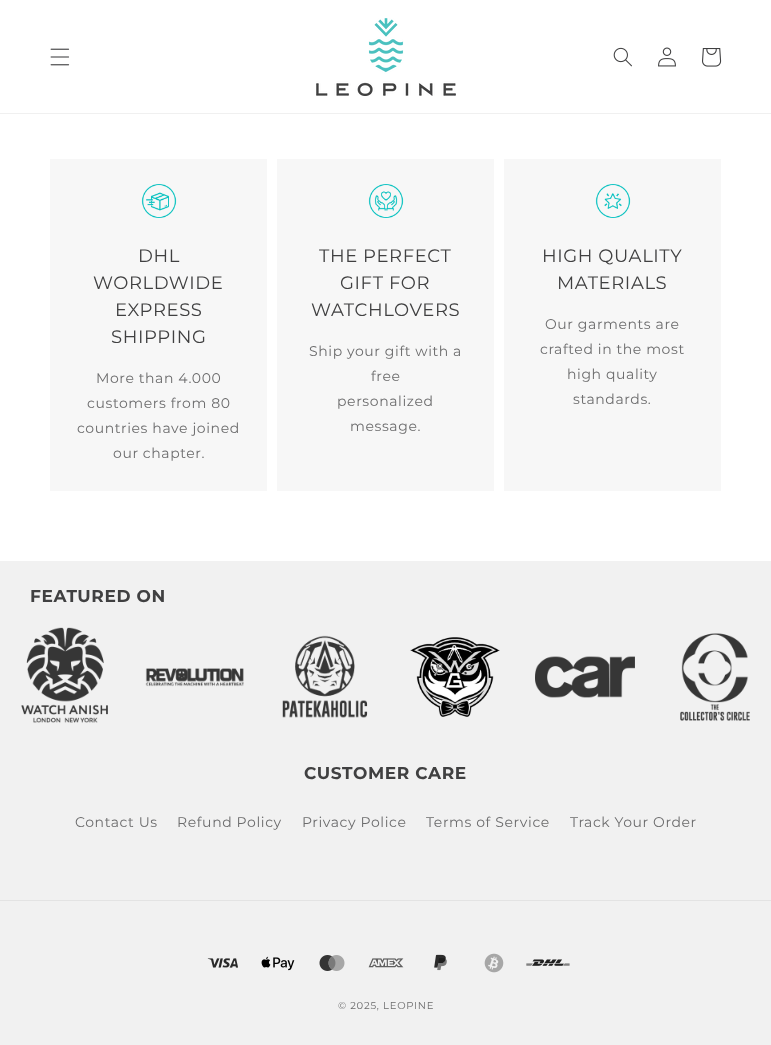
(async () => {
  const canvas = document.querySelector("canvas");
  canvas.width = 771;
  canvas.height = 1045;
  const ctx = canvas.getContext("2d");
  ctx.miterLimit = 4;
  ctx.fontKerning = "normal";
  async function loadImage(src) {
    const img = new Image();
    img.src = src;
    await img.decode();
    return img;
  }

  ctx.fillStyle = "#ffffff";
  ctx.fillRect(0, 0, 771, 1045);
  ctx.fillStyle = "#f0f0f0";
  ctx.fillRect(0, 113, 771, 1);
  ctx.drawImage(await loadImage("img/1.png"), 50, 48, 20, 18);
  ctx.drawImage(await loadImage("img/2.png"), 316, 18, 140, 78);
  ctx.drawImage(await loadImage("img/3.png"), 613, 47, 19, 20);
  ctx.drawImage(await loadImage("img/4.png"), 658, 47, 18, 20);
  ctx.drawImage(await loadImage("img/5.png"), 702, 48, 20, 19);
  ctx.fillStyle = "#f7f7f7";
  ctx.fillRect(50, 159, 217, 332);
  ctx.drawImage(await loadImage("img/6.png"), 141, 184, 36, 34);
  ctx.fillRect(277, 159, 217, 332);
  ctx.drawImage(await loadImage("img/7.png"), 368, 184, 36, 34);
  ctx.fillRect(504, 159, 217, 332);
  ctx.drawImage(await loadImage("img/8.png"), 595, 184, 36, 34);
  ctx.fillStyle = "#f1f1f1";
  ctx.fillRect(0, 561, 771, 484);
  ctx.drawImage(await loadImage("img/9.png"), 21, 627, 87, 96);
  ctx.drawImage(await loadImage("img/10.png"), 145, 668, 99, 19);
  ctx.drawImage(await loadImage("img/11.png"), 282, 635, 86, 83);
  ctx.drawImage(await loadImage("img/12.png"), 410, 637, 90, 80);
  ctx.drawImage(await loadImage("img/13.png"), 535, 656, 100, 42);
  ctx.drawImage(await loadImage("img/14.png"), 680, 633, 70, 88);
  ctx.fillStyle = "#e3e3e3";
  ctx.fillRect(0, 900, 771, 1);
  ctx.drawImage(await loadImage("img/15.png"), 207, 958, 31, 10);
  ctx.drawImage(await loadImage("img/16.png"), 261, 956, 34, 15);
  ctx.drawImage(await loadImage("img/17.png"), 319, 955, 26, 16);
  ctx.drawImage(await loadImage("img/18.png"), 368, 958, 36, 10);
  ctx.drawImage(await loadImage("img/19.png"), 434, 954, 13, 17);
  ctx.drawImage(await loadImage("img/20.png"), 484, 953, 20, 20);
  ctx.drawImage(await loadImage("img/21.png"), 526, 959, 44, 7);
  ctx.letterSpacing = "0.6px";
  ctx.font = "18px Montserrat";
  ctx.fillStyle = "#404041";
  for (const [text, x, y] of [
    ["DHL", 138, 262],
    ["WORLDWIDE", 93, 289],
    ["EXPRESS", 115, 316],
    ["SHIPPING", 111, 343],
  ]) {
    ctx.fillText(text, x, y);
  }
  ctx.font = "14px Montserrat";
  ctx.fillStyle = "#6c6c6d";
  for (const [text, x, y] of [
    ["More than 4.000", 96, 383],
    ["customers from 80", 87, 408],
    ["countries have joined", 77, 433],
    ["our chapter.", 113, 458],
  ]) {
    ctx.fillText(text, x, y);
  }
  ctx.font = "18px Montserrat";
  ctx.fillStyle = "#404041";
  for (const [text, x, y] of [
    ["THE PERFECT", 319, 262],
    ["GIFT FOR", 340, 289],
    ["WATCHLOVERS", 311, 316],
  ]) {
    ctx.fillText(text, x, y);
  }
  ctx.font = "14px Montserrat";
  ctx.fillStyle = "#6c6c6d";
  for (const [text, x, y] of [
    ["Ship your gift with a", 309, 356],
    ["free", 371, 381],
    ["personalized", 337, 406],
    ["message.", 350, 431],
  ]) {
    ctx.fillText(text, x, y);
  }
  ctx.font = "18px Montserrat";
  ctx.fillStyle = "#404041";
  ctx.fillText("HIGH QUALITY", 542, 262);
  ctx.fillText("MATERIALS", 557, 289);
  ctx.font = "14px Montserrat";
  ctx.fillStyle = "#6c6c6d";
  for (const [text, x, y] of [
    ["Our garments are", 545, 329],
    ["crafted in the most", 540, 354],
    ["high quality", 567, 379],
    ["standards.", 573, 404],
  ]) {
    ctx.fillText(text, x, y);
  }
  ctx.font = "bold 17px Montserrat";
  ctx.fillStyle = "#404041";
  ctx.fillText("FEATURED ON", 30, 602);
  ctx.fillText("CUSTOMER CARE", 304, 779);
  ctx.font = "14px Montserrat";
  ctx.fillStyle = "#6c6c6d";
  for (const [text, x, y] of [
    ["Contact Us", 75, 827],
    ["Refund Policy", 177, 827],
    ["Privacy Police", 302, 827],
    ["Terms of Service", 426, 827],
    ["Track Your Order", 570, 827],
  ]) {
    ctx.fillText(text, x, y);
  }
  ctx.letterSpacing = "0.75px";
  ctx.font = "10px Montserrat";
  ctx.fillText("© 2025, LEOPINE", 338, 1009);
})();
